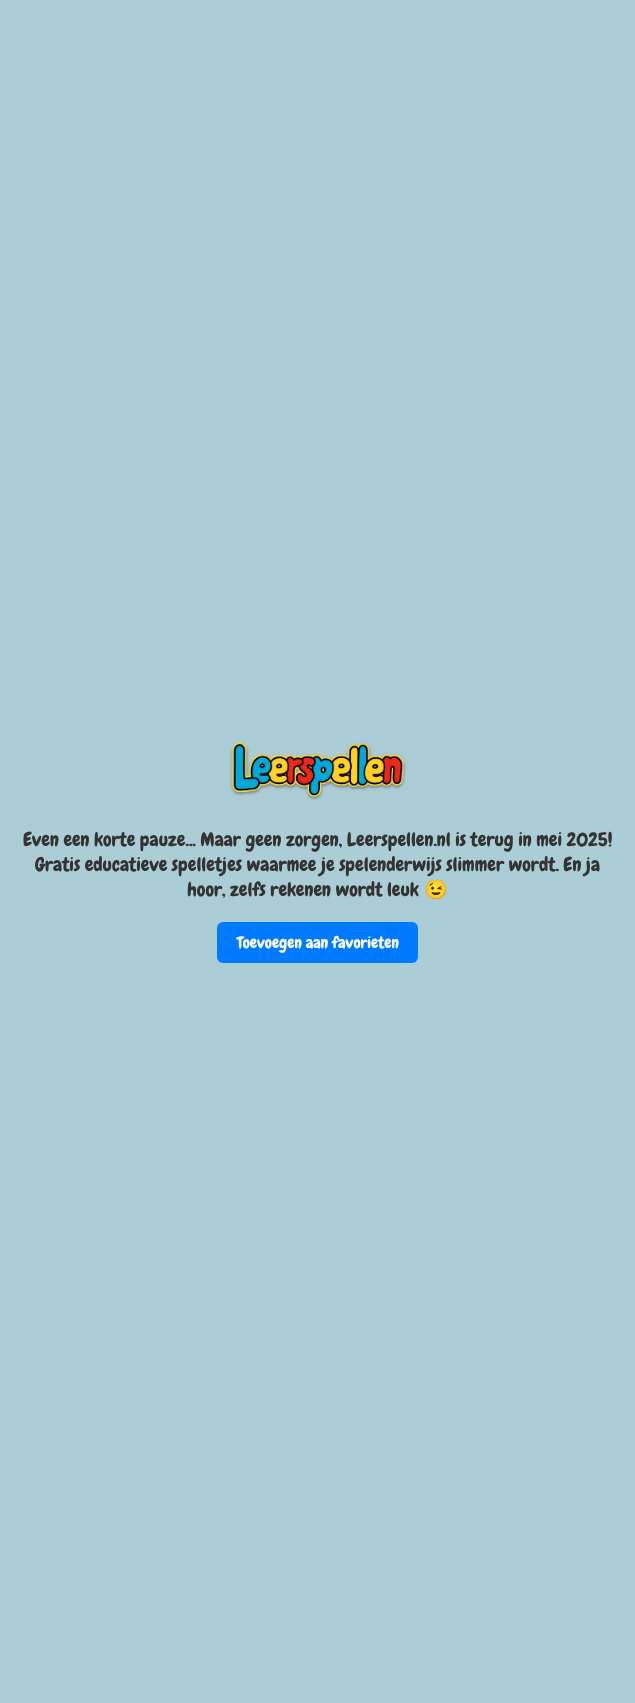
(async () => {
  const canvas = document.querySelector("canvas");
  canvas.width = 635;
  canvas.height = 1703;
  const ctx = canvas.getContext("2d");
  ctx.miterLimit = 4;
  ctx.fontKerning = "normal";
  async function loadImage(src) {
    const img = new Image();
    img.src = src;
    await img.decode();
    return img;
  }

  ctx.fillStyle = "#abcdd6";
  ctx.fillRect(0, 0, 635, 1703);
  ctx.drawImage(await loadImage("img/1.png"), 229, 741, 178, 60);
  ctx.fillStyle = "#007bff";
  ctx.beginPath();
  ctx.roundRect(217, 922, 201, 41, 6);
  ctx.fill();
  ctx.font = "19.2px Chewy";
  ctx.fillStyle = "#333333";
  for (const [text, x, y] of [
    ["Even een korte pauze... Maar geen zorgen, Leerspellen.nl is terug in mei 2025!", 23, 846],
    ["Gratis educatieve spelletjes waarmee je spelenderwijs slimmer wordt. En ja", 35, 871],
    ["hoor, zelfs rekenen wordt leuk", 187, 896],
  ]) {
    ctx.fillText(text, x, y);
  }
  ctx.font = "19.2px Noto Color Emoji";
  ctx.fillText("😉", 424, 896);
  ctx.font = "16px Chewy";
  ctx.fillStyle = "#ffffff";
  ctx.fillText("Toevoegen aan favorieten", 237, 948);
})();
